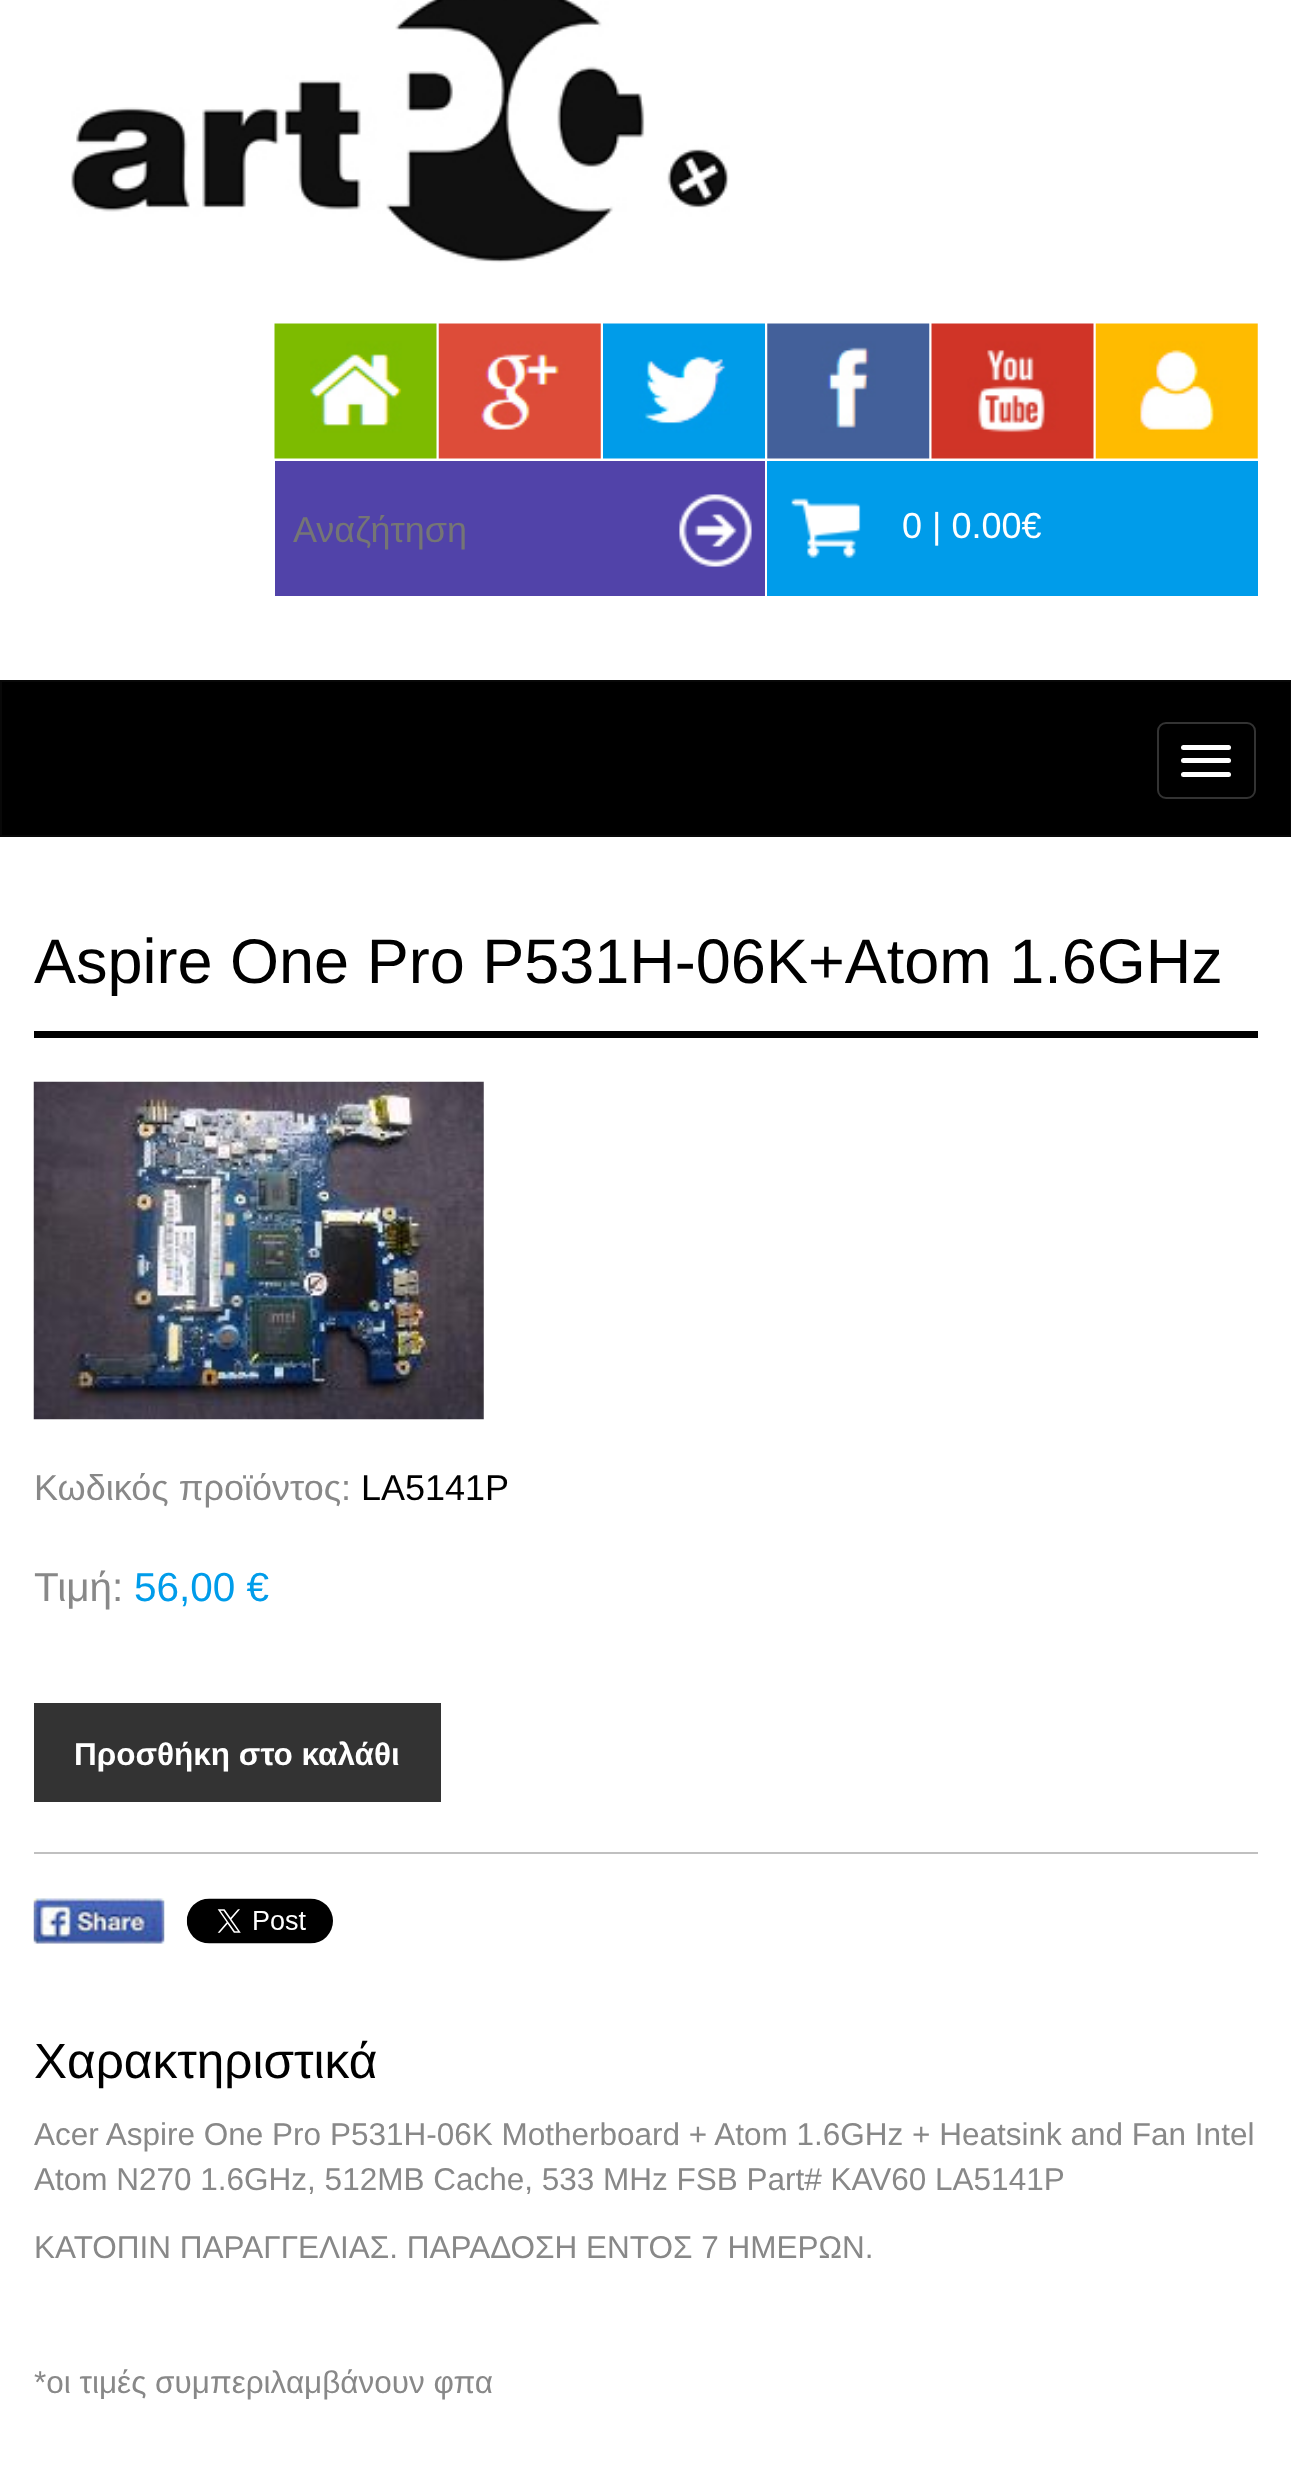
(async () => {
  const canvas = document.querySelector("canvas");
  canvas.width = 1291;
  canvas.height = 2469;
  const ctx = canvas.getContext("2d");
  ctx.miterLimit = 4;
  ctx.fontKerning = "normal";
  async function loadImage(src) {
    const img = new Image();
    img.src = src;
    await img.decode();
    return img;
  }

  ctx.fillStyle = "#ffffff";
  ctx.fillRect(0, 0, 1291, 2469);
  ctx.drawImage(await loadImage("img/1.png"), 71, 0, 659, 263);
  ctx.drawImage(await loadImage("img/2.png"), 274, 323, 163, 136);
  ctx.drawImage(await loadImage("img/3.png"), 438, 323, 163, 136);
  ctx.drawImage(await loadImage("img/4.png"), 603, 323, 162, 136);
  ctx.drawImage(await loadImage("img/5.png"), 767, 323, 163, 136);
  ctx.drawImage(await loadImage("img/6.png"), 931, 323, 163, 136);
  ctx.drawImage(await loadImage("img/7.png"), 1095, 323, 163, 136);
  ctx.fillStyle = "#5143a9";
  ctx.fillRect(275, 461, 490, 135);
  ctx.drawImage(await loadImage("img/8.png"), 679, 494, 73, 73);
  ctx.fillStyle = "#009cea";
  ctx.fillRect(767, 461, 491, 135);
  ctx.drawImage(await loadImage("img/9.png"), 791, 498, 70, 61);
  ctx.fillStyle = "#000000";
  ctx.beginPath();
  ctx.rect(1, 681, 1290, 155);
  ctx.fill();
  ctx.strokeStyle = "#080808";
  ctx.lineWidth = 2;
  ctx.stroke();
  ctx.beginPath();
  ctx.roundRect(1158, 723, 97, 75, 8);
  ctx.strokeStyle = "#333333";
  ctx.stroke();
  ctx.fillStyle = "#ffffff";
  ctx.beginPath();
  ctx.roundRect(1181, 745, 50, 5, 2.5);
  ctx.fill();
  ctx.beginPath();
  ctx.roundRect(1181, 758, 50, 5, 2.5);
  ctx.fill();
  ctx.beginPath();
  ctx.roundRect(1181, 772, 50, 5, 2.5);
  ctx.fill();
  ctx.fillStyle = "#000000";
  ctx.fillRect(34, 1031, 1224, 7);
  ctx.drawImage(await loadImage("img/10.png"), 33, 1081, 451, 339);
  ctx.fillStyle = "#333333";
  ctx.fillRect(34, 1703, 407, 99);
  ctx.fillStyle = "#c0c0c0";
  ctx.fillRect(34, 1852, 1224, 2);
  ctx.drawImage(await loadImage("img/11.png"), 33, 1898, 132, 46);
  ctx.drawImage(await loadImage("img/12.png"), 186, 1898, 147, 46);
  ctx.font = "36px Liberation Sans";
  ctx.fillStyle = "#757575";
  ctx.fillText("Αναζήτηση", 293, 542);
  ctx.fillStyle = "#ffffff";
  ctx.fillText("0 | 0.00€", 902, 538);
  ctx.font = "63px Liberation Sans";
  ctx.fillStyle = "#000000";
  ctx.fillText("Aspire One Pro P531H-06K+Atom 1.6GHz", 34, 983);
  ctx.font = "36px Liberation Sans";
  ctx.fillStyle = "#888888";
  ctx.fillText("Κωδικός προϊόντος:", 34, 1500);
  ctx.fillStyle = "#000000";
  ctx.fillText("LA5141P", 361, 1500);
  ctx.font = "40.5px Liberation Sans";
  ctx.fillStyle = "#888888";
  ctx.fillText("Τιμή:", 34, 1601);
  ctx.fillStyle = "#009cea";
  ctx.fillText("56,00 €", 134, 1601);
  ctx.font = "bold 31.5px Liberation Sans";
  ctx.fillStyle = "#ffffff";
  ctx.fillText("Προσθήκη στο καλάθι", 74, 1765);
  ctx.font = "49.5px Liberation Sans";
  ctx.fillStyle = "#000000";
  ctx.fillText("Χαρακτηριστικά", 34, 2078);
  ctx.font = "31.5px Liberation Sans";
  ctx.fillStyle = "#888888";
  for (const [text, x, y] of [
    ["Acer Aspire One Pro P531H-06K Motherboard + Atom 1.6GHz + Heatsink and Fan Intel", 34, 2145],
    ["Atom N270 1.6GHz, 512MB Cache, 533 MHz FSB Part# KAV60 LA5141P", 34, 2190],
    ["ΚΑΤΟΠΙΝ ΠΑΡΑΓΓΕΛΙΑΣ. ΠΑΡΑΔΟΣΗ ΕΝΤΟΣ 7 ΗΜΕΡΩΝ.", 34, 2258],
    ["*οι τιμές συμπεριλαμβάνουν φπα", 34, 2393],
  ]) {
    ctx.fillText(text, x, y);
  }
})();
